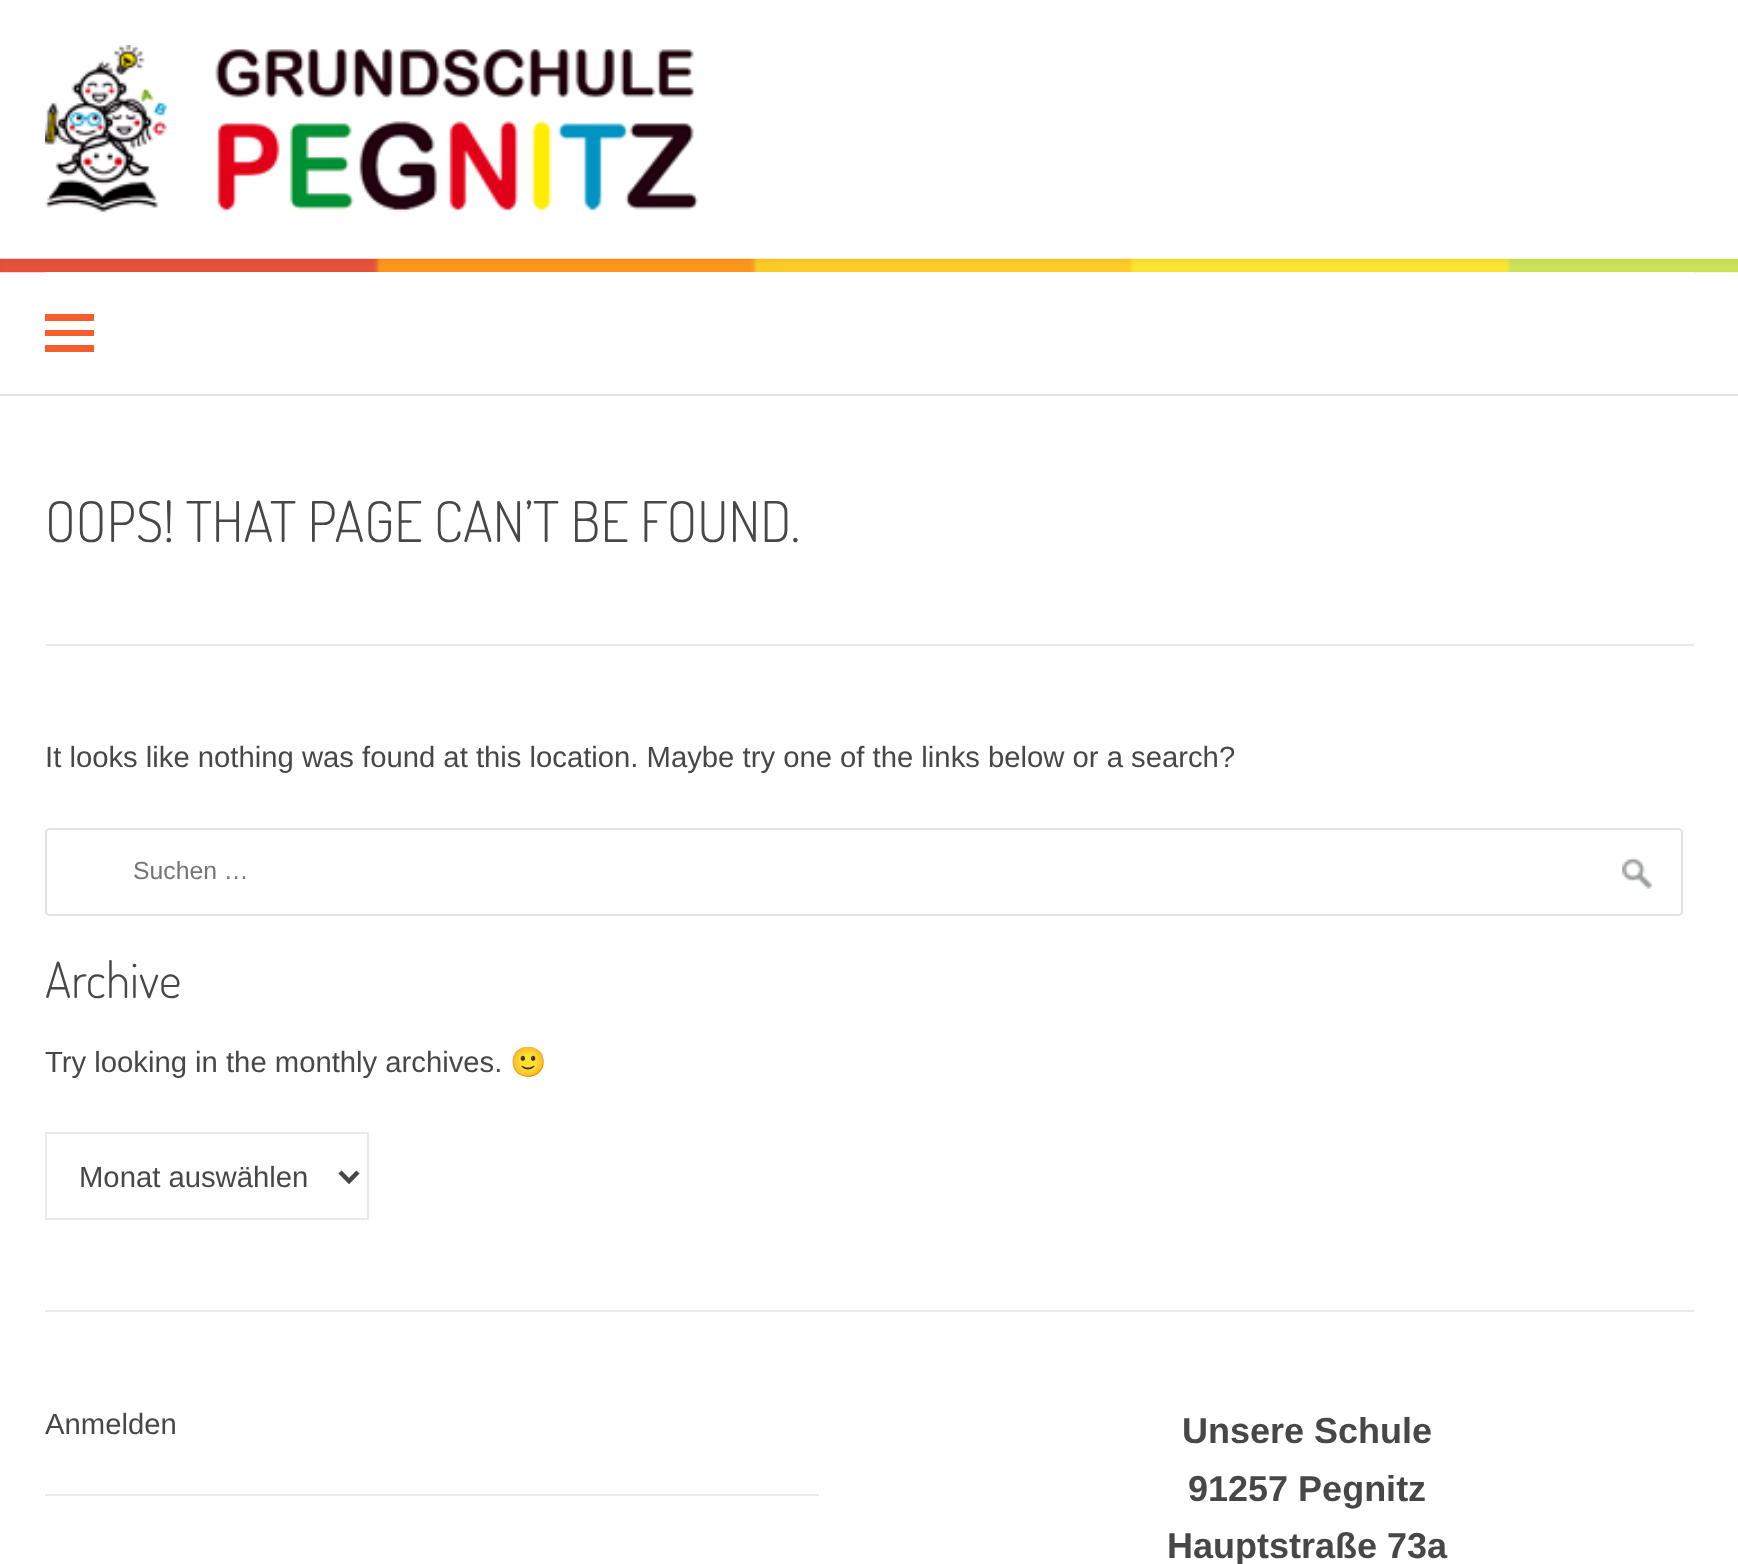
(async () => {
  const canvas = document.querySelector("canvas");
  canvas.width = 1738;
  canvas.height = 1564;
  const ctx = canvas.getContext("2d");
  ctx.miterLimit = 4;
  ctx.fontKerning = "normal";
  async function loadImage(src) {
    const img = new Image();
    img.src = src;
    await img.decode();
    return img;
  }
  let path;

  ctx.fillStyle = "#ffffff";
  ctx.fillRect(0, 0, 1738, 1564);
  ctx.drawImage(await loadImage("img/1.png"), 45, 45, 654, 168);
  ctx.drawImage(await loadImage("img/2.png"), 0, 258, 1738, 15);
  ctx.fillStyle = "#e2e2e2";
  ctx.fillRect(0, 394, 1738, 2);
  ctx.fillStyle = "#ffffff";
  ctx.fillRect(45, 272, 1649, 1);
  ctx.fillStyle = "#f55d2d";
  path = new Path2D("M45 352V345H94V352ZM45 314H94V321H45ZM45 336V330H94V336Z");
  ctx.fill(path);
  ctx.fillStyle = "#eaeaea";
  ctx.fillRect(45, 1310, 1649, 2);
  ctx.fillRect(45, 644, 1649, 2);
  ctx.drawImage(await loadImage("img/3.png"), 1622, 857, 31, 32);
  ctx.beginPath();
  ctx.roundRect(46, 829, 1636, 86, 4);
  ctx.strokeStyle = "#e2e2e2";
  ctx.lineWidth = 2;
  ctx.stroke();
  ctx.strokeStyle = "#eaeaea";
  ctx.strokeRect(46, 1133, 322, 86);
  path = new Path2D("M340 1172L349 1181L358 1172");
  ctx.strokeStyle = "#474747";
  ctx.lineWidth = 4.5;
  ctx.stroke(path);
  ctx.fillRect(45, 1494, 774, 2);
  ctx.font = "300 56.25px Dosis";
  ctx.fillStyle = "#474747";
  ctx.fillText("OOPS! THAT PAGE CAN’T BE FOUND.", 45, 542);
  ctx.font = "29.25px Liberation Sans";
  ctx.fillText("It looks like nothing was found at this location. Maybe try one of the links below or a search?", 45, 767);
  ctx.font = "24.75px Liberation Sans";
  ctx.fillStyle = "#757575";
  ctx.fillText("Suchen …", 133, 879);
  ctx.font = "300 49.5px Dosis";
  ctx.fillStyle = "#474747";
  ctx.fillText("Archive", 45, 998);
  ctx.font = "29.25px Liberation Sans";
  ctx.fillText("Try looking in the monthly archives.", 45, 1072);
  ctx.font = "29.25px Noto Color Emoji";
  ctx.fillText("🙂", 510, 1072);
  ctx.font = "29.25px Liberation Sans";
  ctx.fillText("Monat auswählen", 79, 1187);
  ctx.fillText("Anmelden", 45, 1434);
  ctx.font = "bold 36px Liberation Sans";
  for (const [text, x, y] of [
    ["Unsere Schule", 1182, 1443],
    ["91257 Pegnitz", 1188, 1501],
    ["Hauptstraße 73a", 1167, 1558],
  ]) {
    ctx.fillText(text, x, y);
  }
})();
